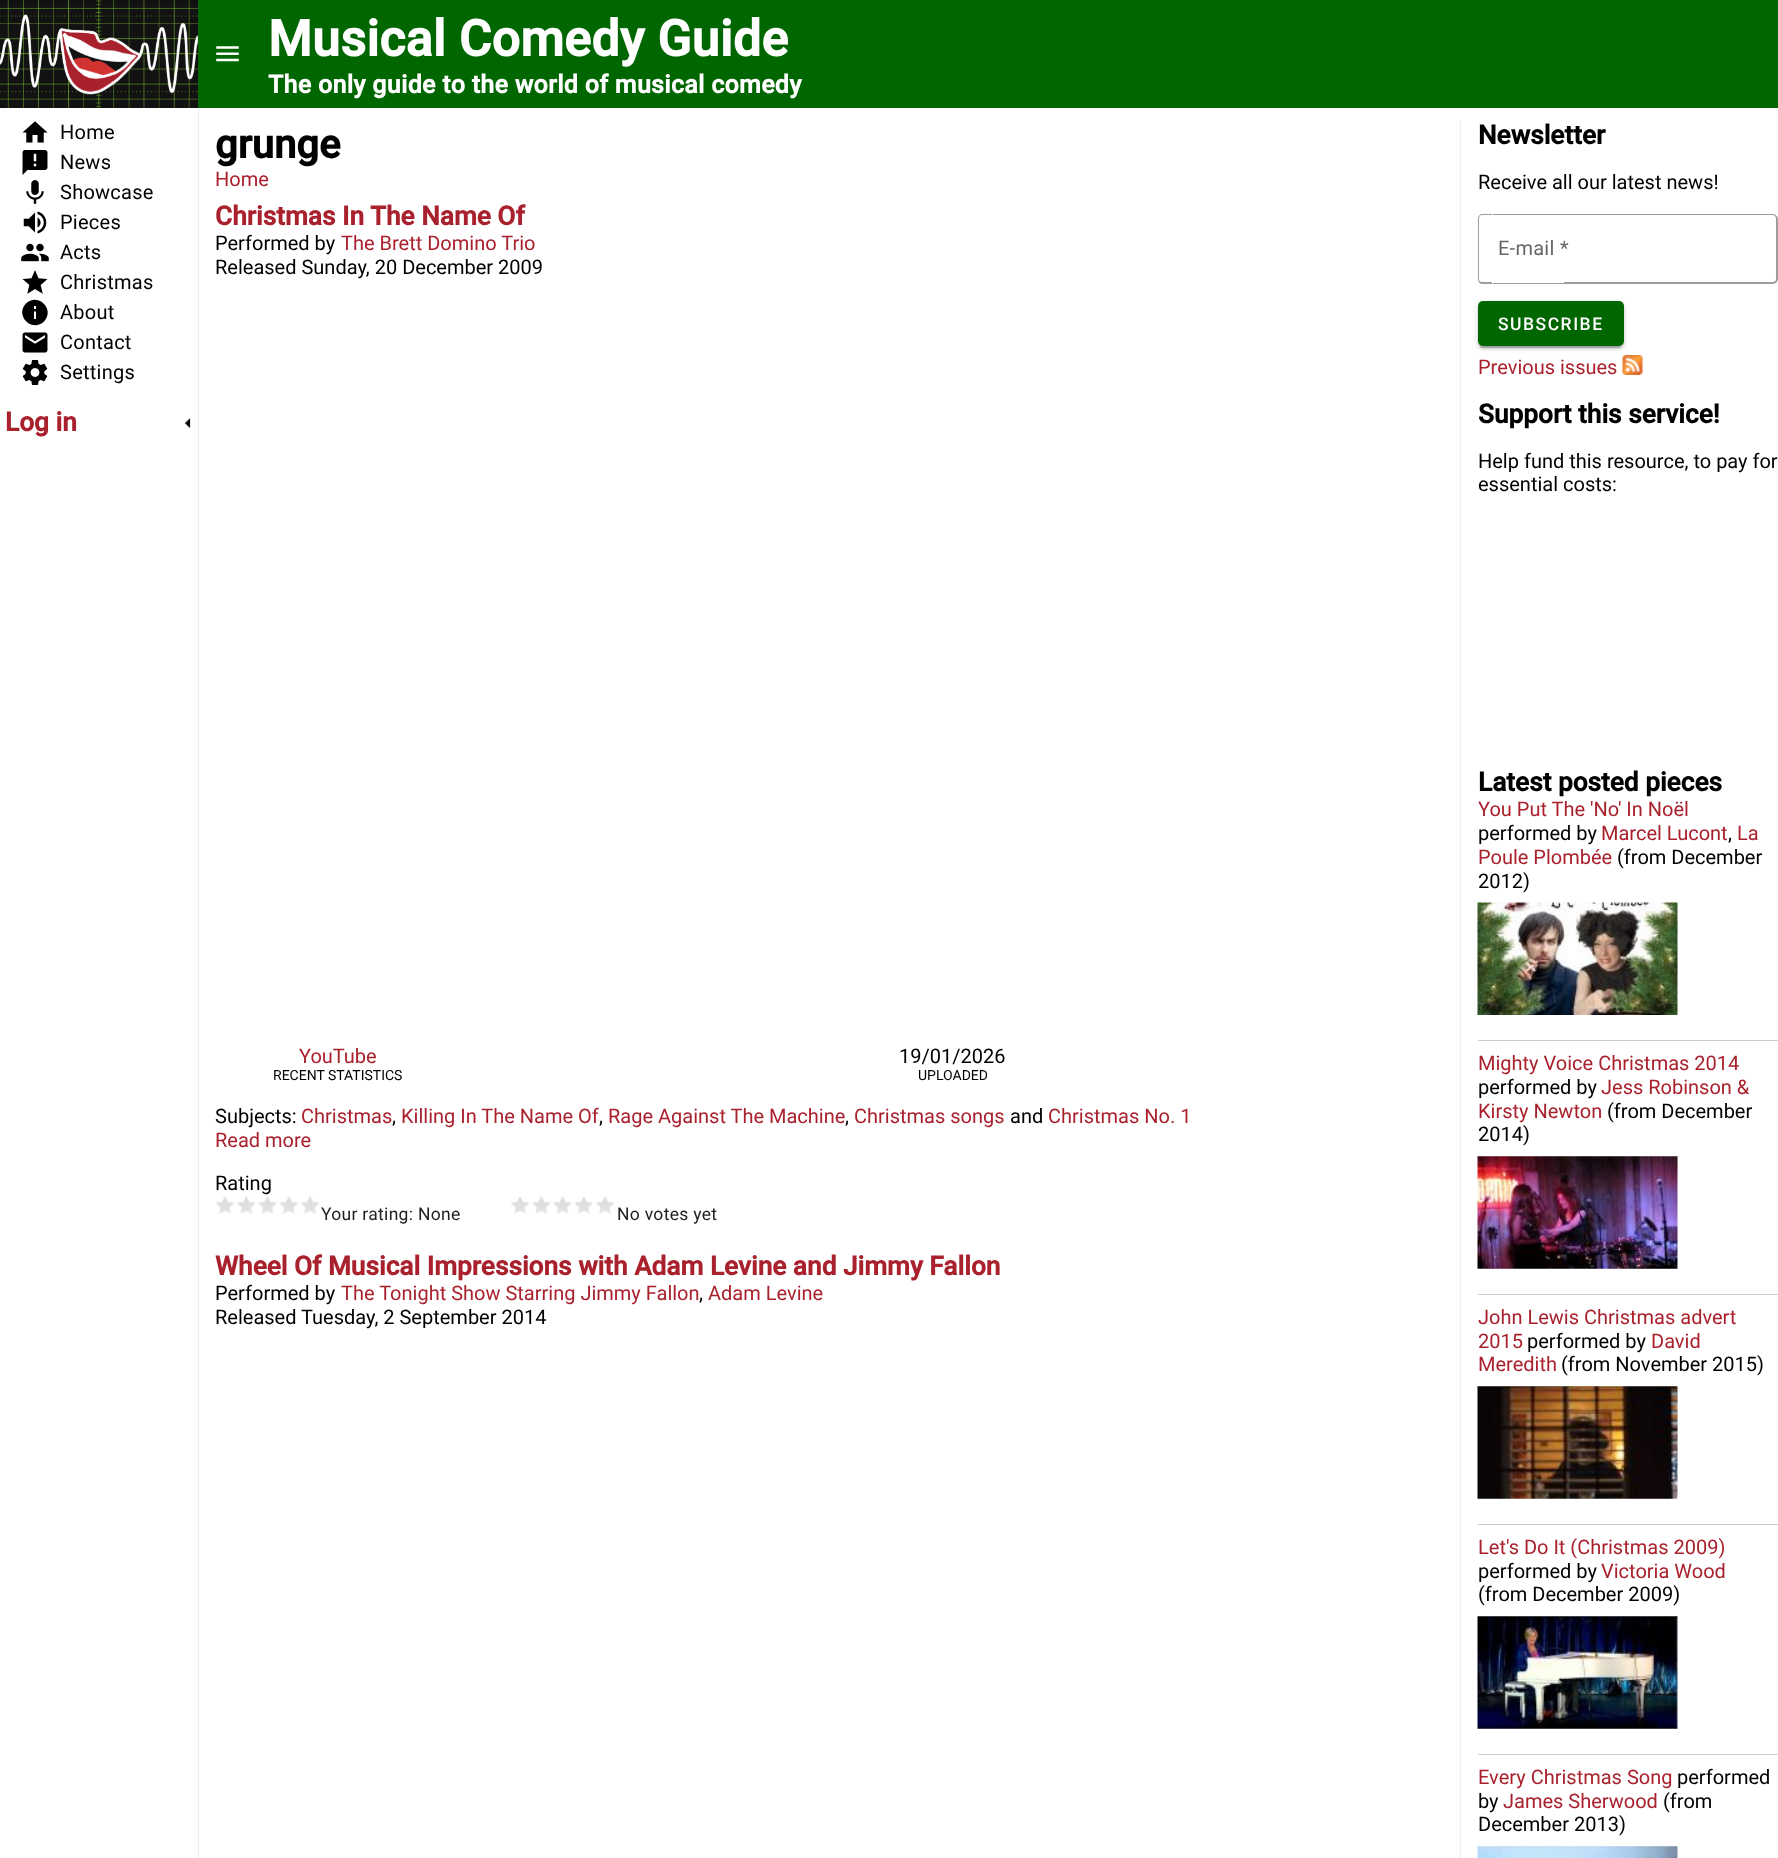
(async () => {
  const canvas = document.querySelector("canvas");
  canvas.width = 1778;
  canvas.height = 1858;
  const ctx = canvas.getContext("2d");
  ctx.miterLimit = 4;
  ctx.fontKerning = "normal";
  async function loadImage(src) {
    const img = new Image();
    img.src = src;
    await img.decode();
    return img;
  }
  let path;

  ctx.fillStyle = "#ffffff";
  ctx.fillRect(0, 0, 1778, 1858);
  ctx.fillStyle = "#121212";
  ctx.fillRect(0, 0, 198, 108);
  ctx.drawImage(await loadImage("img/1.png"), 0, 0, 198, 108);
  ctx.drawImage(await loadImage("img/2.png"), 22, 121, 26, 22);
  ctx.drawImage(await loadImage("img/3.png"), 22, 150, 26, 25);
  ctx.drawImage(await loadImage("img/4.png"), 26, 180, 18, 24);
  ctx.drawImage(await loadImage("img/5.png"), 23, 211, 24, 23);
  ctx.drawImage(await loadImage("img/6.png"), 21, 243, 28, 19);
  ctx.drawImage(await loadImage("img/7.png"), 22, 270, 26, 24);
  ctx.fillStyle = "#000000";
  path = new Path2D("M36 309V306H34V309ZM36 319V311.5H34V319ZM26 303.5C38 292 55.5 309.5 44 321.5C32 333 14.5 315.5 26 303.5Z");
  ctx.fill(path);
  ctx.drawImage(await loadImage("img/8.png"), 22, 332, 26, 21);
  ctx.drawImage(await loadImage("img/9.png"), 22, 360, 26, 25);
  ctx.drawImage(await loadImage("img/10.png"), 184, 418, 7, 10);
  ctx.fillStyle = "#006600";
  ctx.fillRect(198, 0, 1580, 108);
  ctx.drawImage(await loadImage("img/11.png"), 216, 46, 23, 16);
  ctx.fillStyle = "#eeeeee";
  ctx.fillRect(198, 108, 1, 1750);
  ctx.fillRect(1460, 120, 1, 1738);
  ctx.drawImage(await loadImage("img/12.png"), 216, 1196, 18, 18);
  ctx.drawImage(await loadImage("img/13.png"), 216, 1197, 18, 6);
  ctx.drawImage(await loadImage("img/14.png"), 237, 1196, 19, 18);
  ctx.drawImage(await loadImage("img/15.png"), 238, 1197, 17, 13);
  ctx.drawImage(await loadImage("img/16.png"), 258, 1196, 19, 18);
  ctx.drawImage(await loadImage("img/17.png"), 259, 1197, 17, 13);
  ctx.drawImage(await loadImage("img/18.png"), 280, 1196, 18, 18);
  ctx.drawImage(await loadImage("img/19.png"), 280, 1197, 17, 13);
  ctx.drawImage(await loadImage("img/12.png"), 301, 1196, 18, 18);
  ctx.drawImage(await loadImage("img/13.png"), 301, 1197, 18, 6);
  ctx.drawImage(await loadImage("img/12.png"), 511, 1196, 18, 18);
  ctx.drawImage(await loadImage("img/13.png"), 511, 1197, 18, 6);
  ctx.drawImage(await loadImage("img/14.png"), 532, 1196, 19, 18);
  ctx.drawImage(await loadImage("img/15.png"), 533, 1197, 17, 13);
  ctx.drawImage(await loadImage("img/20.png"), 553, 1196, 19, 18);
  ctx.drawImage(await loadImage("img/21.png"), 554, 1197, 17, 13);
  ctx.drawImage(await loadImage("img/18.png"), 575, 1196, 18, 18);
  ctx.drawImage(await loadImage("img/19.png"), 575, 1197, 17, 13);
  ctx.drawImage(await loadImage("img/12.png"), 596, 1196, 18, 18);
  ctx.drawImage(await loadImage("img/13.png"), 596, 1197, 18, 6);
  ctx.fillStyle = "#9e9e9e";
  path = new Path2D("M1482 214H1492V284H1482C1480 284 1478 282 1478 279V219C1478 216 1480 214 1482 214ZM1482 215H1492V282H1482C1480 282 1479 281 1479 279V219C1479 217 1480 215 1482 215Z");
  ctx.fill(path, "evenodd");
  ctx.fillRect(1493, 214, 71, 1);
  ctx.fillRect(1493, 283, 71, 1);
  path = new Path2D("M1564 214H1772C1775 214 1778 216 1778 219V279C1778 282 1775 284 1772 284H1564ZM1564 215H1772C1775 215 1776 217 1776 219V279C1776 281 1775 282 1772 282H1564Z");
  ctx.fill(path, "evenodd");
  ctx.drawImage(await loadImage("img/22.png"), 1622, 355, 21, 20);
  ctx.fillStyle = "rgba(0, 0, 0, 0.12)";
  ctx.filter = "blur(3px)";
  ctx.beginPath();
  ctx.roundRect(1478, 303, 146, 45, 5);
  ctx.fill();
  ctx.filter = "none";
  ctx.fillStyle = "rgba(0, 0, 0, 0.14)";
  ctx.filter = "blur(1px)";
  ctx.beginPath();
  ctx.roundRect(1478, 304, 146, 45, 5);
  ctx.fill();
  ctx.filter = "none";
  ctx.fillStyle = "rgba(0, 0, 0, 0.2)";
  ctx.filter = "blur(0.5px)";
  ctx.beginPath();
  ctx.roundRect(1480, 308, 141, 40, 2.5);
  ctx.fill();
  ctx.filter = "none";
  ctx.fillStyle = "#006600";
  ctx.beginPath();
  ctx.roundRect(1478, 301, 146, 45, 5);
  ctx.fill();
  ctx.fillStyle = "#cccccc";
  ctx.fillRect(1478, 1040, 300, 1);
  ctx.drawImage(await loadImage("img/23.png"), 1477, 902, 201, 113);
  ctx.fillRect(1478, 1294, 300, 1);
  ctx.drawImage(await loadImage("img/24.png"), 1477, 1156, 201, 113);
  ctx.fillRect(1478, 1524, 300, 1);
  ctx.drawImage(await loadImage("img/25.png"), 1477, 1386, 201, 113);
  ctx.fillRect(1478, 1754, 300, 1);
  ctx.drawImage(await loadImage("img/26.png"), 1477, 1616, 201, 113);
  ctx.drawImage(await loadImage("img/27.png"), 1477, 1846, 201, 12);
  ctx.letterSpacing = "0.25px";
  ctx.font = "20px Roboto";
  ctx.fillStyle = "#000000";
  for (const [text, x, y] of [
    ["Home", 60, 139],
    ["News", 60, 169],
    ["Showcase", 60, 199],
    ["Pieces", 60, 229],
    ["Acts", 60, 259],
    ["Christmas", 60, 289],
    ["About", 60, 319],
    ["Contact", 60, 349],
    ["Settings", 60, 379],
  ]) {
    ctx.fillText(text, x, y);
  }
  ctx.letterSpacing = "0px";
  ctx.font = "bold 26.25px Roboto";
  ctx.fillStyle = "#aa212e";
  ctx.fillText("Log in", 5, 431);
  ctx.letterSpacing = "0.3px";
  ctx.font = "bold 50px Roboto";
  ctx.fillStyle = "#ffffff";
  ctx.fillText("Musical Comedy Guide", 268, 56);
  ctx.font = "bold 25px Roboto";
  ctx.fillText("The only guide to the world of musical comedy", 268, 93);
  ctx.letterSpacing = "0px";
  ctx.font = "bold 40px Roboto";
  ctx.fillStyle = "#000000";
  ctx.fillText("grunge", 215, 158);
  ctx.font = "20px Roboto";
  ctx.fillStyle = "#aa212e";
  ctx.fillText("Home", 215, 186);
  ctx.font = "bold 26.25px Roboto";
  ctx.fillText("Christmas In The Name Of", 215, 225);
  ctx.font = "20px Roboto";
  ctx.fillStyle = "#000000";
  ctx.fillText("Performed by", 215, 250);
  ctx.fillStyle = "#aa212e";
  ctx.fillText("The Brett Domino Trio", 341, 250);
  ctx.fillStyle = "#000000";
  ctx.fillText("Released Sunday, 20 December 2009", 215, 274);
  ctx.fillStyle = "#aa212e";
  ctx.fillText("YouTube", 299, 1063);
  ctx.font = "14px Roboto";
  ctx.fillStyle = "#000000";
  ctx.fillText("RECENT STATISTICS", 273, 1080);
  ctx.font = "20px Roboto";
  ctx.fillText("19/01/2026", 899, 1063);
  ctx.font = "14px Roboto";
  ctx.fillText("UPLOADED", 918, 1080);
  ctx.font = "20px Roboto";
  ctx.fillText("Subjects:", 215, 1123);
  ctx.fillStyle = "#aa212e";
  ctx.fillText("Christmas", 301, 1123);
  ctx.fillStyle = "#000000";
  ctx.fillText(",", 392, 1123);
  ctx.fillStyle = "#aa212e";
  ctx.fillText("Killing In The Name Of", 401, 1123);
  ctx.fillStyle = "#000000";
  ctx.fillText(",", 599, 1123);
  ctx.fillStyle = "#aa212e";
  ctx.fillText("Rage Against The Machine", 608, 1123);
  ctx.fillStyle = "#000000";
  ctx.fillText(",", 845, 1123);
  ctx.fillStyle = "#aa212e";
  ctx.fillText("Christmas songs", 854, 1123);
  ctx.fillStyle = "#000000";
  ctx.fillText("and", 1010, 1123);
  ctx.fillStyle = "#aa212e";
  ctx.fillText("Christmas No. 1", 1048, 1123);
  ctx.fillText("Read more", 215, 1147);
  ctx.fillStyle = "#000000";
  ctx.fillText("Rating", 215, 1190);
  ctx.letterSpacing = "0.3px";
  ctx.font = "17.5px Roboto";
  ctx.fillStyle = "#212121";
  ctx.fillText("Your rating: None", 321, 1220);
  ctx.fillText("No votes yet", 617, 1220);
  ctx.letterSpacing = "0px";
  ctx.font = "bold 26.25px Roboto";
  ctx.fillStyle = "#aa212e";
  ctx.fillText("Wheel Of Musical Impressions with Adam Levine and Jimmy Fallon", 215, 1275);
  ctx.font = "20px Roboto";
  ctx.fillStyle = "#000000";
  ctx.fillText("Performed by", 215, 1300);
  ctx.fillStyle = "#aa212e";
  ctx.fillText("The Tonight Show Starring Jimmy Fallon", 341, 1300);
  ctx.fillStyle = "#000000";
  ctx.fillText(",", 699, 1300);
  ctx.fillStyle = "#aa212e";
  ctx.fillText("Adam Levine", 708, 1300);
  ctx.fillStyle = "#000000";
  ctx.fillText("Released", 215, 1324);
  ctx.fillText("Tuesday, 2 September 2014", 301, 1324);
  ctx.font = "bold 26.25px Roboto";
  ctx.fillText("Newsletter", 1478, 144);
  ctx.font = "20px Roboto";
  ctx.fillText("Receive all our latest news!", 1478, 189);
  ctx.letterSpacing = "0.25px";
  ctx.fillStyle = "#666666";
  ctx.fillText("E-mail", 1498, 255);
  ctx.fillText("*", 1560, 255);
  ctx.letterSpacing = "1.5px";
  ctx.font = "500 17.5px Roboto";
  ctx.fillStyle = "#ffffff";
  ctx.fillText("SUBSCRIBE", 1498, 330);
  ctx.letterSpacing = "0px";
  ctx.font = "20px Roboto";
  ctx.fillStyle = "#aa212e";
  ctx.fillText("Previous issues", 1478, 374);
  ctx.font = "bold 26.25px Roboto";
  ctx.fillStyle = "#000000";
  ctx.fillText("Support this service!", 1478, 423);
  ctx.font = "20px Roboto";
  ctx.fillText("Help fund this resource, to pay for", 1478, 468);
  ctx.fillText("essential costs:", 1478, 491);
  ctx.font = "bold 26.25px Roboto";
  ctx.fillText("Latest posted pieces", 1478, 791);
  ctx.font = "20px Roboto";
  ctx.fillStyle = "#aa212e";
  ctx.fillText("You Put The 'No' In Noël", 1478, 816);
  ctx.fillStyle = "#000000";
  ctx.fillText("performed by", 1478, 840);
  ctx.fillStyle = "#aa212e";
  ctx.fillText("Marcel Lucont", 1601, 840);
  ctx.fillStyle = "#000000";
  ctx.fillText(",", 1728, 840);
  ctx.fillStyle = "#aa212e";
  ctx.fillText("La", 1737, 840);
  ctx.fillText("Poule Plombée", 1478, 864);
  ctx.fillStyle = "#000000";
  ctx.fillText("(from December", 1617, 864);
  ctx.fillText("2012)", 1478, 888);
  ctx.fillStyle = "#aa212e";
  ctx.fillText("Mighty Voice Christmas 2014", 1478, 1070);
  ctx.fillStyle = "#000000";
  ctx.fillText("performed by", 1478, 1094);
  ctx.fillStyle = "#aa212e";
  ctx.fillText("Jess Robinson &", 1601, 1094);
  ctx.fillText("Kirsty Newton", 1478, 1118);
  ctx.fillStyle = "#000000";
  ctx.fillText("(from December", 1607, 1118);
  ctx.fillText("2014)", 1478, 1141);
  ctx.fillStyle = "#aa212e";
  ctx.fillText("John Lewis Christmas advert", 1478, 1324);
  ctx.fillText("2015", 1478, 1348);
  ctx.fillStyle = "#000000";
  ctx.fillText("performed by", 1527, 1348);
  ctx.fillStyle = "#aa212e";
  ctx.fillText("David", 1651, 1348);
  ctx.fillText("Meredith", 1478, 1371);
  ctx.fillStyle = "#000000";
  ctx.fillText("(from November 2015)", 1561, 1371);
  ctx.fillStyle = "#aa212e";
  ctx.fillText("Let's Do It (Christmas 2009)", 1478, 1554);
  ctx.fillStyle = "#000000";
  ctx.fillText("performed by", 1478, 1578);
  ctx.fillStyle = "#aa212e";
  ctx.fillText("Victoria Wood", 1601, 1578);
  ctx.fillStyle = "#000000";
  ctx.fillText("(from December 2009)", 1478, 1601);
  ctx.fillStyle = "#aa212e";
  ctx.fillText("Every Christmas Song", 1478, 1784);
  ctx.fillStyle = "#000000";
  ctx.fillText("performed", 1677, 1784);
  ctx.fillText("by", 1478, 1808);
  ctx.fillStyle = "#aa212e";
  ctx.fillText("James Sherwood", 1503, 1808);
  ctx.fillStyle = "#000000";
  ctx.fillText("(from", 1663, 1808);
  ctx.fillText("December 2013)", 1478, 1831);
})();
